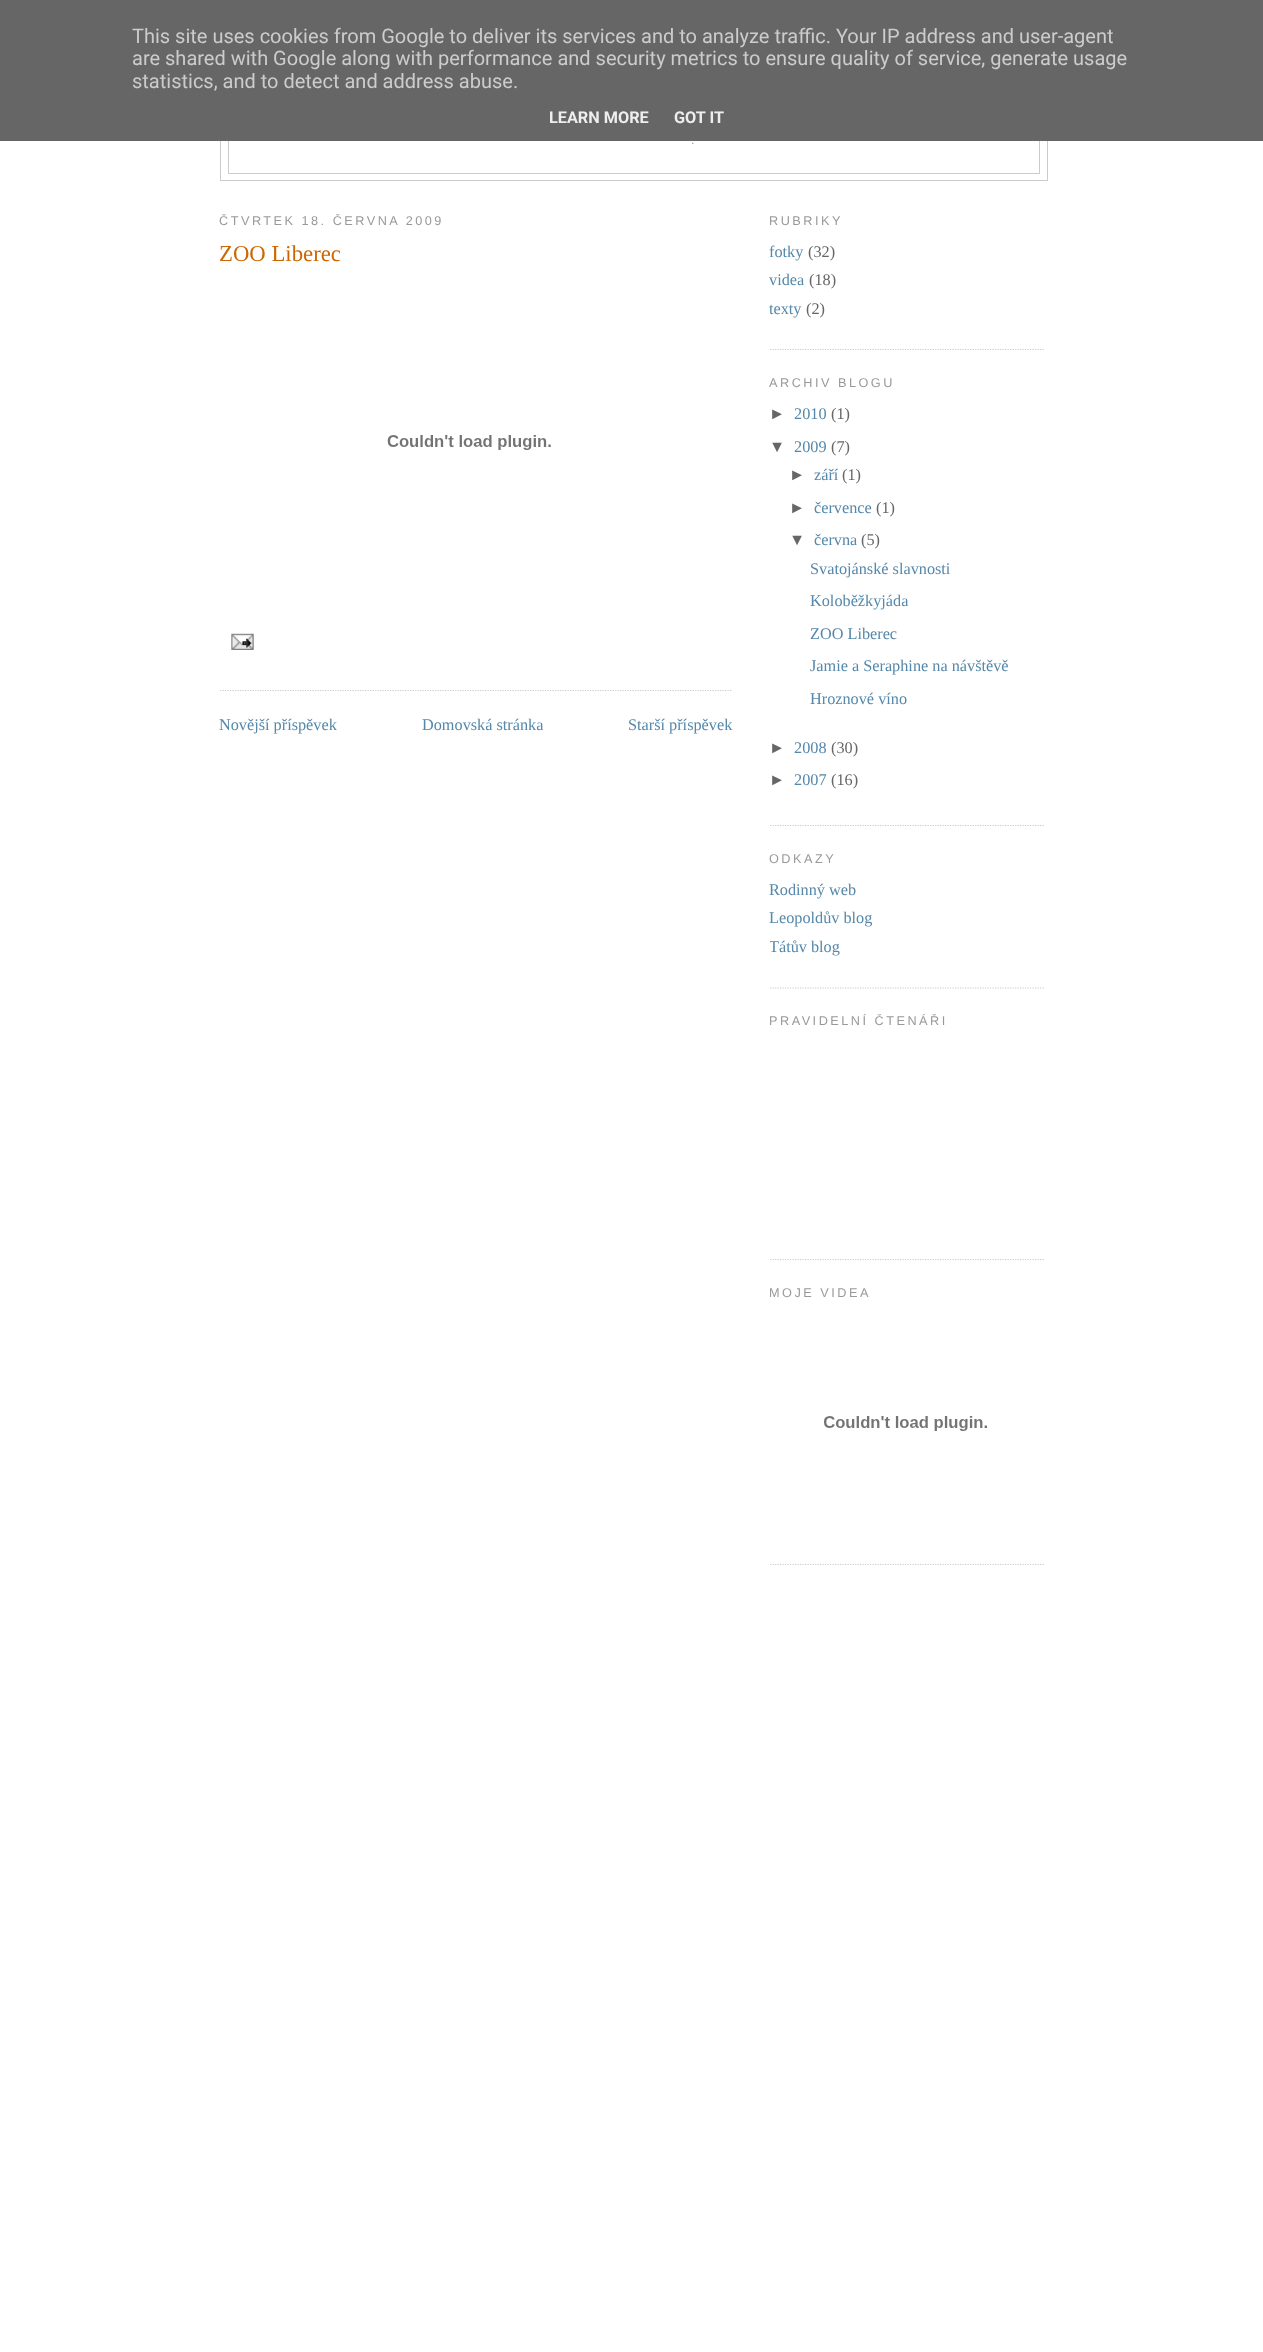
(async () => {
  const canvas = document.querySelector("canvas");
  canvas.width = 1263;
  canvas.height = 2352;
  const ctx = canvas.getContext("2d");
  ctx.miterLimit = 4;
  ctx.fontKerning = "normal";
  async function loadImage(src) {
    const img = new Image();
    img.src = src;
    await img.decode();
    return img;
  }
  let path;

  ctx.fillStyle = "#ffffff";
  ctx.fillRect(0, 0, 1263, 2352);
  ctx.strokeStyle = "#cccccc";
  ctx.strokeRect(220.5, 13.5, 827, 167);
  ctx.strokeRect(228.5, 20.5, 811, 153);
  ctx.fillStyle = "#666666";
  ctx.fillRect(0, 0, 1263, 141);
  path = new Path2D("M220 690.5H732.5");
  ctx.lineWidth = 1.2;
  ctx.setLineDash([1.25, 1.25]);
  ctx.stroke(path);
  ctx.drawImage(await loadImage("img/1.png"), 387, 435, 164, 15);
  ctx.drawImage(await loadImage("img/2.png"), 231, 633, 23, 17);
  path = new Path2D("M770 349.5H1045");
  ctx.stroke(path);
  path = new Path2D("M770 825.5H1045");
  ctx.stroke(path);
  path = new Path2D("M770 988H1045");
  ctx.stroke(path);
  path = new Path2D("M770 1259.5H1045");
  ctx.stroke(path);
  path = new Path2D("M770 1564.5H1045");
  ctx.stroke(path);
  ctx.drawImage(await loadImage("img/3.png"), 824, 1416, 163, 15);
  ctx.font = "20px Roboto";
  ctx.fillStyle = "#cccccc";
  for (const [text, x, y] of [
    ["This site uses cookies from Google to deliver its services and to analyze traffic. Your IP address and user-agent", 132, 43],
    ["are shared with Google along with performance and security metrics to ensure quality of service, generate usage", 132, 65],
    ["statistics, and to detect and address abuse.", 132, 88],
  ]) {
    ctx.fillText(text, x, y);
  }
  ctx.font = "bold 16.25px Roboto";
  ctx.fillStyle = "#eeeeee";
  ctx.fillText("LEARN MORE", 549, 123);
  ctx.fillText("GOT IT", 674, 123);
  ctx.letterSpacing = "2.5px";
  ctx.font = "12.7px Liberation Sans";
  ctx.fillStyle = "#999999";
  ctx.fillText(".", 691, 144);
  ctx.fillText("ČTVRTEK 18. ČERVNA 2009", 219, 225);
  ctx.letterSpacing = "0px";
  ctx.font = "22.75px Liberation Serif";
  ctx.fillStyle = "#cc6600";
  ctx.fillText("ZOO Liberec", 219, 261);
  ctx.font = "16.25px Liberation Serif";
  ctx.fillStyle = "#5588aa";
  for (const [text, x, y] of [
    ["Novější příspěvek", 219, 730],
    ["Domovská stránka", 422, 730],
    ["Starší příspěvek", 628, 730],
  ]) {
    ctx.fillText(text, x, y);
  }
  ctx.letterSpacing = "2.5px";
  ctx.font = "12.7px Liberation Sans";
  ctx.fillStyle = "#999999";
  ctx.fillText("RUBRIKY", 769, 225);
  ctx.letterSpacing = "0px";
  ctx.font = "16.25px Liberation Serif";
  ctx.fillStyle = "#5588aa";
  ctx.fillText("fotky", 769, 257);
  ctx.fillStyle = "#666666";
  ctx.fillText("(32)", 808, 257);
  ctx.fillStyle = "#5588aa";
  ctx.fillText("videa", 769, 285);
  ctx.fillStyle = "#666666";
  ctx.fillText("(18)", 809, 285);
  ctx.fillStyle = "#5588aa";
  ctx.fillText("texty", 769, 314);
  ctx.fillStyle = "#666666";
  ctx.fillText("(2)", 806, 314);
  ctx.letterSpacing = "2.5px";
  ctx.font = "12.7px Liberation Sans";
  ctx.fillStyle = "#999999";
  ctx.fillText("ARCHIV BLOGU", 769, 387);
  ctx.letterSpacing = "0px";
  ctx.font = "16.25px Liberation Sans";
  ctx.fillStyle = "#666666";
  ctx.fillText("►", 769, 419);
  ctx.font = "16.25px Liberation Serif";
  ctx.fillStyle = "#5588aa";
  ctx.fillText("2010", 794, 419);
  ctx.fillStyle = "#666666";
  ctx.fillText("(1)", 831, 419);
  ctx.font = "16.25px Liberation Sans";
  ctx.fillText("▼", 769, 452);
  ctx.font = "16.25px Liberation Serif";
  ctx.fillStyle = "#5588aa";
  ctx.fillText("2009", 794, 452);
  ctx.fillStyle = "#666666";
  ctx.fillText("(7)", 831, 452);
  ctx.font = "16.25px Liberation Sans";
  ctx.fillText("►", 789, 480);
  ctx.font = "16.25px Liberation Serif";
  ctx.fillStyle = "#5588aa";
  ctx.fillText("září", 814, 480);
  ctx.fillStyle = "#666666";
  ctx.fillText("(1)", 842, 480);
  ctx.font = "16.25px Liberation Sans";
  ctx.fillText("►", 789, 513);
  ctx.font = "16.25px Liberation Serif";
  ctx.fillStyle = "#5588aa";
  ctx.fillText("července", 814, 513);
  ctx.fillStyle = "#666666";
  ctx.fillText("(1)", 876, 513);
  ctx.font = "16.25px Liberation Sans";
  ctx.fillText("▼", 789, 545);
  ctx.font = "16.25px Liberation Serif";
  ctx.fillStyle = "#5588aa";
  ctx.fillText("června", 814, 545);
  ctx.fillStyle = "#666666";
  ctx.fillText("(5)", 861, 545);
  ctx.fillStyle = "#5588aa";
  for (const [text, x, y] of [
    ["Svatojánské slavnosti", 810, 574],
    ["Koloběžkyjáda", 810, 606],
    ["ZOO Liberec", 810, 639],
    ["Jamie a Seraphine na návštěvě", 810, 671],
    ["Hroznové víno", 810, 704],
  ]) {
    ctx.fillText(text, x, y);
  }
  ctx.font = "16.25px Liberation Sans";
  ctx.fillStyle = "#666666";
  ctx.fillText("►", 769, 753);
  ctx.font = "16.25px Liberation Serif";
  ctx.fillStyle = "#5588aa";
  ctx.fillText("2008", 794, 753);
  ctx.fillStyle = "#666666";
  ctx.fillText("(30)", 831, 753);
  ctx.font = "16.25px Liberation Sans";
  ctx.fillText("►", 769, 785);
  ctx.font = "16.25px Liberation Serif";
  ctx.fillStyle = "#5588aa";
  ctx.fillText("2007", 794, 785);
  ctx.fillStyle = "#666666";
  ctx.fillText("(16)", 831, 785);
  ctx.letterSpacing = "2.5px";
  ctx.font = "12.7px Liberation Sans";
  ctx.fillStyle = "#999999";
  ctx.fillText("ODKAZY", 769, 863);
  ctx.letterSpacing = "0px";
  ctx.font = "16.25px Liberation Serif";
  ctx.fillStyle = "#5588aa";
  ctx.fillText("Rodinný web", 769, 895);
  ctx.fillText("Leopoldův blog", 769, 923);
  ctx.save();
  ctx.beginPath();
  ctx.rect(770, 194, 275, 1396);
  ctx.clip();
  ctx.fillText("Tátův blog", 769, 952);
  ctx.restore();
  ctx.letterSpacing = "2.5px";
  ctx.font = "12.7px Liberation Sans";
  ctx.fillStyle = "#999999";
  ctx.fillText("PRAVIDELNÍ ČTENÁŘI", 769, 1025);
  ctx.fillText("MOJE VIDEA", 769, 1297);
})();
